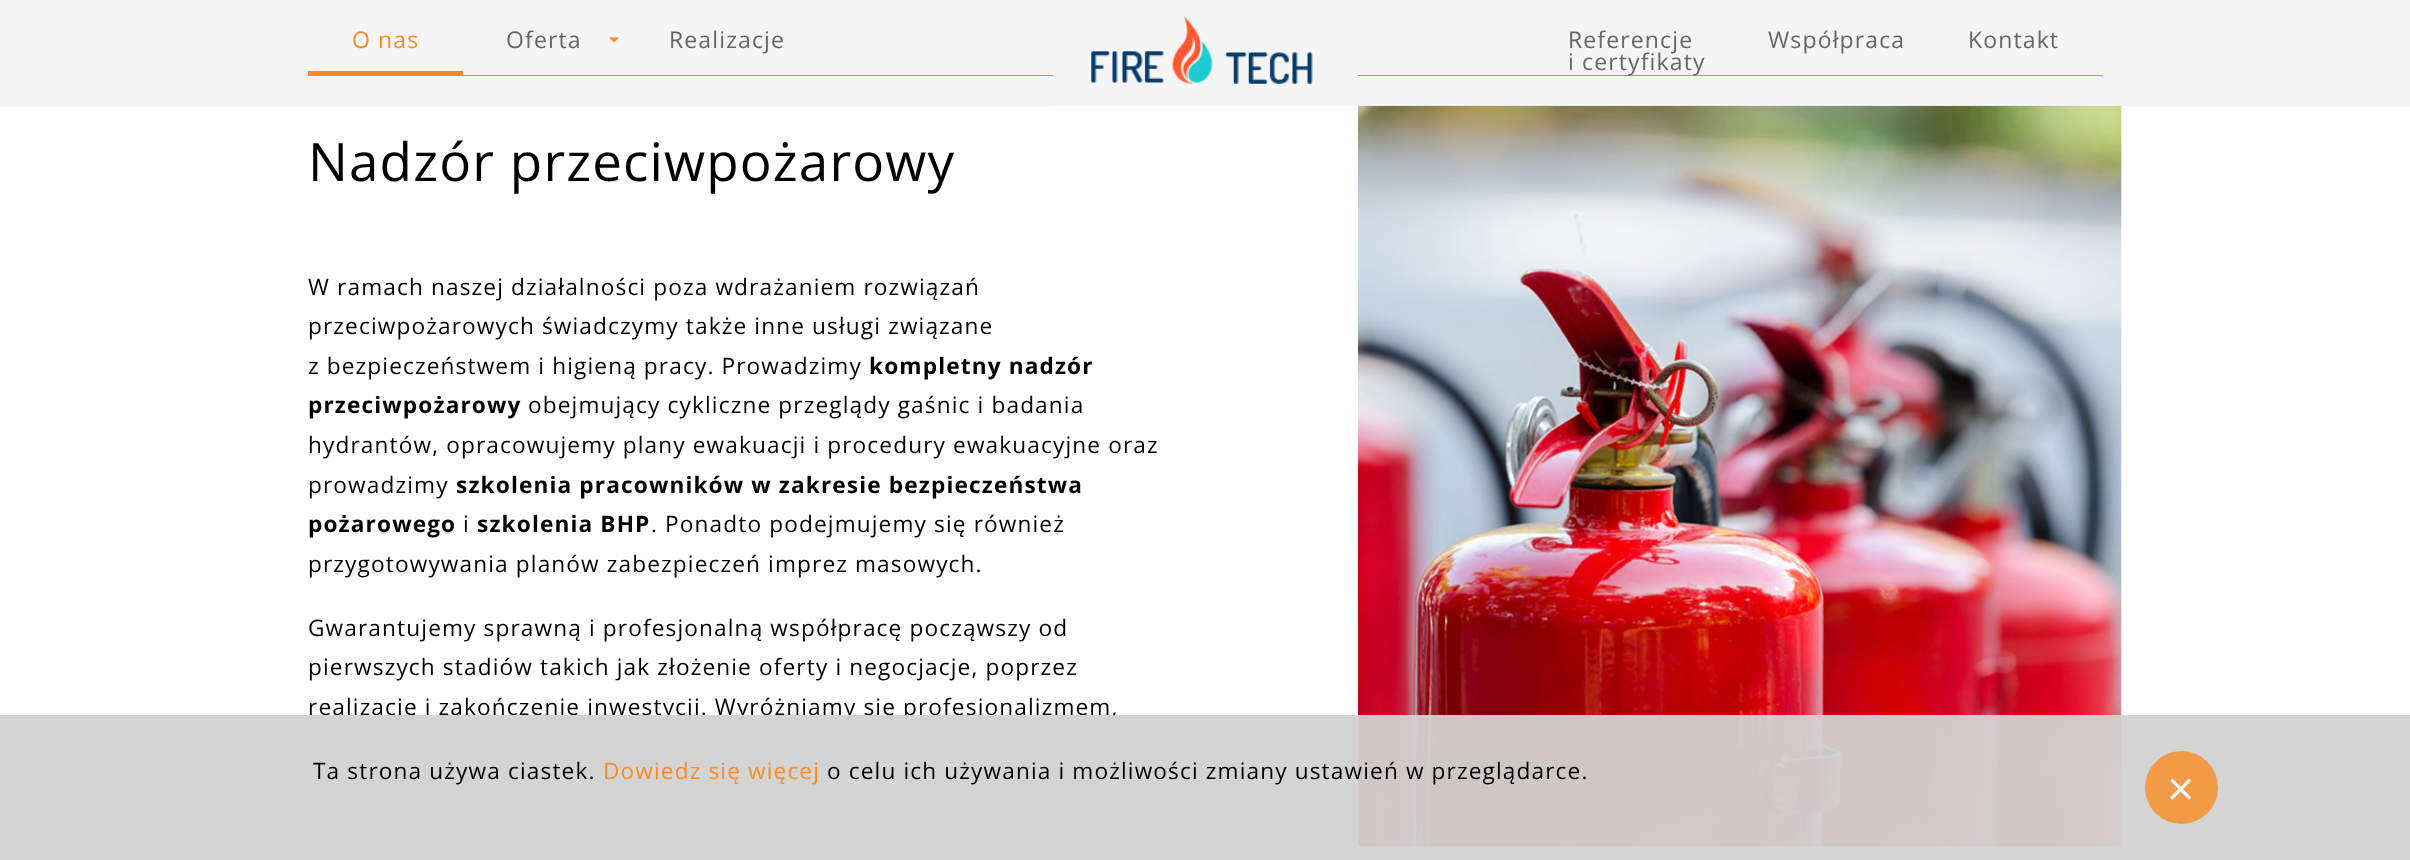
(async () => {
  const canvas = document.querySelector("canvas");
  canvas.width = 2410;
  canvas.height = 860;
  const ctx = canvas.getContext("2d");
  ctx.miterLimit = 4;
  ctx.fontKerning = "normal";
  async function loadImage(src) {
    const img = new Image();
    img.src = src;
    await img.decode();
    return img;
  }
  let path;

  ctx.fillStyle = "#ffffff";
  ctx.fillRect(0, 0, 2410, 860);
  for (const [x, y, w, h, color] of [
    [0, 0, 2410, 105, "#f5f5f5"],
    [0, 105, 2410, 1, "#eeeeee"],
    [308, 75, 1795, 1, "#fa8b23"],
    [1053, 75, 305, 31, "#f5f5f5"],
  ]) {
    ctx.fillStyle = color;
    ctx.fillRect(x, y, w, h);
  }
  ctx.drawImage(await loadImage("img/1.png"), 1091, 16, 222, 68);
  ctx.fillStyle = "#fa8b23";
  ctx.fillRect(308, 71, 155, 4);
  path = new Path2D("M609 37.5H619L614 42.5Z");
  ctx.fill(path);
  ctx.drawImage(await loadImage("img/2.png"), 1358, 106, 764, 741);
  ctx.letterSpacing = "1.13px";
  ctx.font = "23px Open Sans";
  ctx.fillText("O nas", 352, 48);
  ctx.fillStyle = "#666666";
  for (const [text, x, y] of [
    ["Oferta", 506, 48],
    ["Realizacje", 669, 48],
    ["Referencje", 1568, 48],
    ["i certyfikaty", 1568, 70],
    ["Współpraca", 1768, 48],
    ["Kontakt", 1968, 48],
  ]) {
    ctx.fillText(text, x, y);
  }
  ctx.font = "53px Open Sans";
  ctx.fillStyle = "#000000";
  ctx.fillText("Nadzór przeciwpożarowy", 308, 181);
  ctx.font = "22.65px Open Sans";
  for (const [text, x, y] of [
    ["W ramach naszej działalności poza wdrażaniem rozwiązań", 308, 295],
    ["przeciwpożarowych świadczymy także inne usługi związane", 308, 334],
    ["z bezpieczeństwem i higieną pracy. Prowadzimy", 308, 374],
  ]) {
    ctx.fillText(text, x, y);
  }
  ctx.font = "bold 22.65px Open Sans";
  ctx.fillText("kompletny nadzór", 869, 374);
  ctx.fillText("przeciwpożarowy", 308, 413);
  ctx.font = "22.65px Open Sans";
  for (const [text, x, y] of [
    ["obejmujący cykliczne przeglądy gaśnic i badania", 528, 413],
    ["hydrantów, opracowujemy plany ewakuacji i procedury ewakuacyjne oraz", 308, 453],
    ["prowadzimy", 308, 493],
  ]) {
    ctx.fillText(text, x, y);
  }
  ctx.font = "bold 22.65px Open Sans";
  ctx.fillText("szkolenia pracowników w zakresie bezpieczeństwa", 456, 493);
  ctx.fillText("pożarowego", 308, 532);
  ctx.font = "22.65px Open Sans";
  ctx.fillText("i", 463, 532);
  ctx.font = "bold 22.65px Open Sans";
  ctx.fillText("szkolenia BHP", 477, 532);
  ctx.font = "22.65px Open Sans";
  for (const [text, x, y] of [
    [". Ponadto podejmujemy się również", 651, 532],
    ["przygotowywania planów zabezpieczeń imprez masowych.", 308, 572],
    ["Gwarantujemy sprawną i profesjonalną współpracę począwszy od", 308, 636],
    ["pierwszych stadiów takich jak złożenie oferty i negocjacje, poprzez", 308, 675],
    ["realizację i zakończenie inwestycji. Wyróżniamy się profesjonalizmem,", 308, 715],
  ]) {
    ctx.fillText(text, x, y);
  }
  ctx.fillStyle = "rgba(210, 210, 210, 0.95)";
  ctx.fillRect(0, 715, 2410, 145);
  ctx.fillStyle = "#000000";
  ctx.fillText("Ta strona używa ciastek.", 313, 779);
  ctx.fillStyle = "#fa8b23";
  ctx.fillText("Dowiedz się więcej", 603, 779);
  ctx.fillStyle = "#000000";
  ctx.fillText("o celu ich używania i możliwości zmiany ustawień w przeglądarce.", 827, 779);
  ctx.fillStyle = "#f29a46";
  ctx.beginPath();
  ctx.arc(2181.5, 787.5, 36.5, 0, Math.PI * 2);
  ctx.fill();
  ctx.letterSpacing = "0px";
  ctx.font = "48px Open Sans";
  ctx.fillStyle = "#f6f6f6";
  ctx.fillText("×", 2167, 806);
})();
